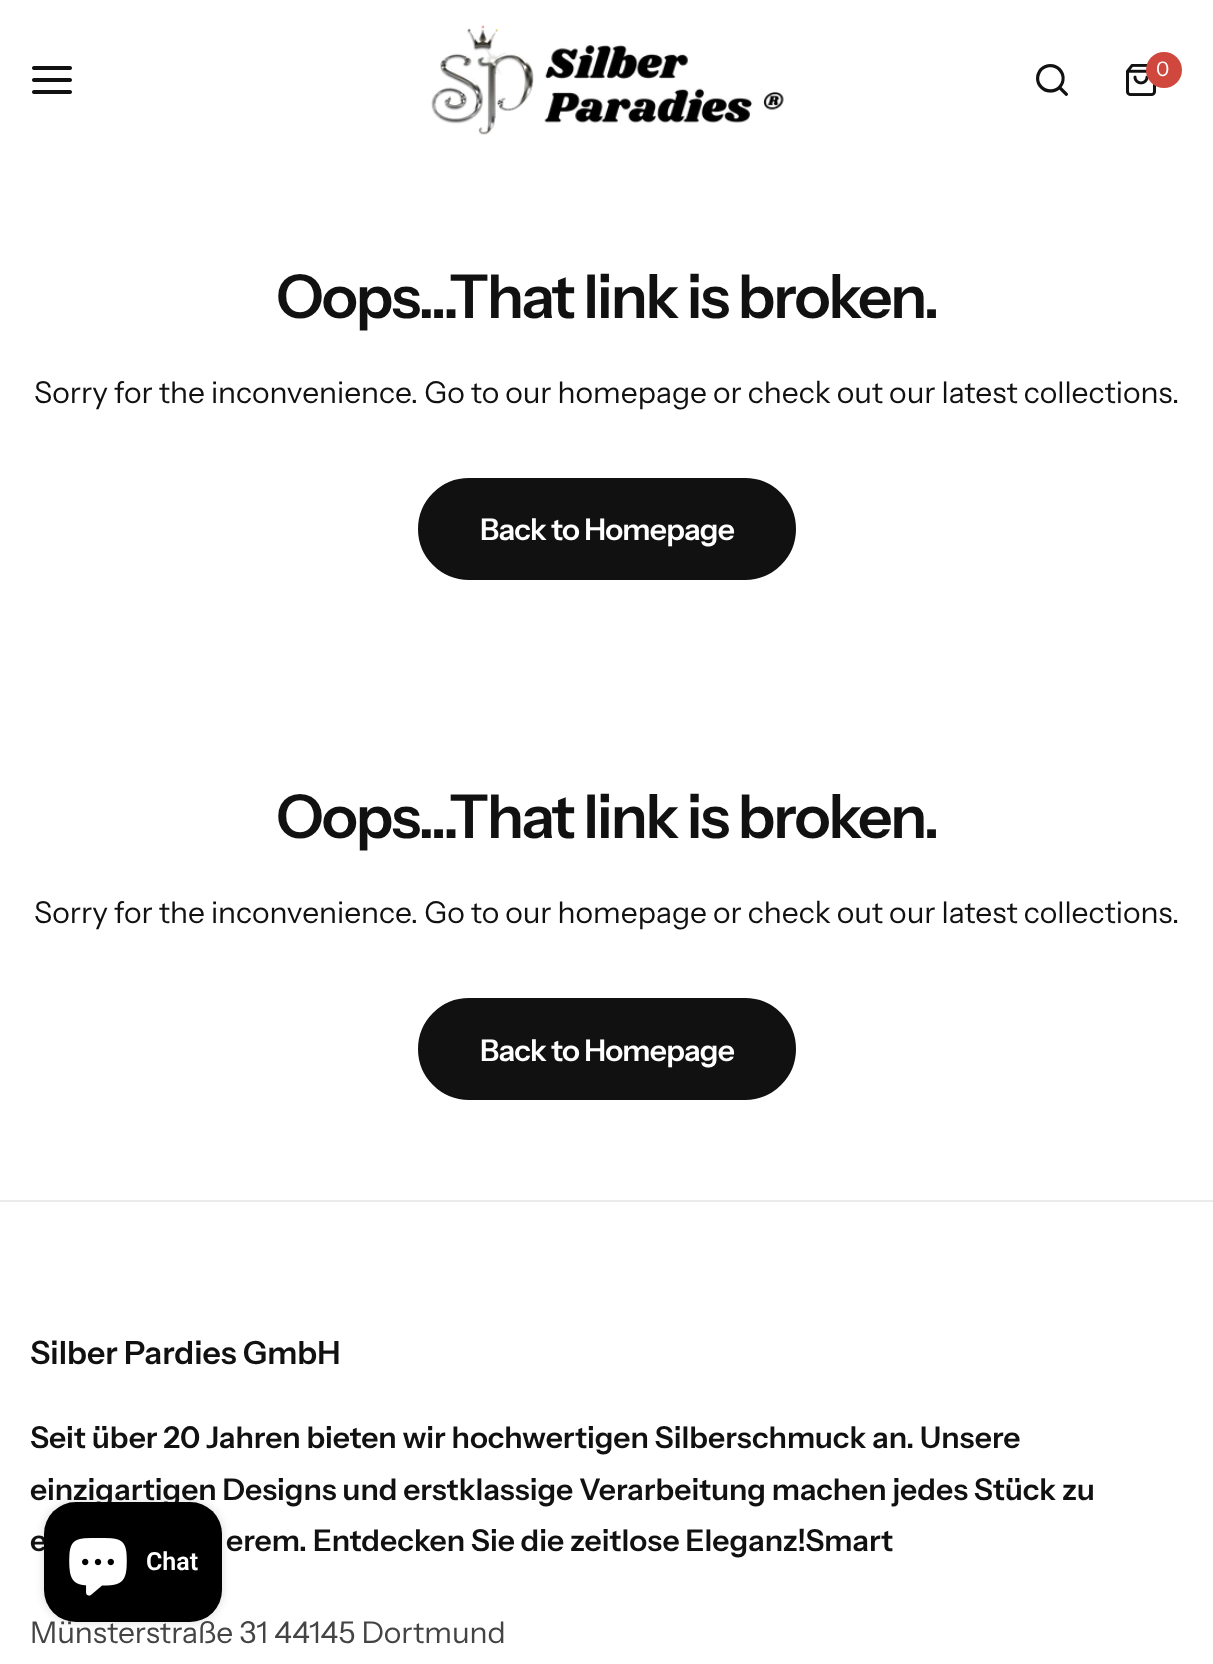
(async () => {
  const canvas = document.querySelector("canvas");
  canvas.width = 1213;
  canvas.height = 1664;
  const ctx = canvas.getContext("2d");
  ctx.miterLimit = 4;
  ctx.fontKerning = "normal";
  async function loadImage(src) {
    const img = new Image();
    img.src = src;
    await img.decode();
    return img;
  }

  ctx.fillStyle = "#ffffff";
  ctx.fillRect(0, 0, 1213, 1664);
  ctx.drawImage(await loadImage("img/1.png"), 32, 66, 40, 28);
  ctx.drawImage(await loadImage("img/2.png"), 431, 25, 353, 110);
  ctx.drawImage(await loadImage("img/3.png"), 1036, 64, 32, 32);
  ctx.drawImage(await loadImage("img/4.png"), 1126, 64, 30, 32);
  ctx.fillStyle = "#d0473e";
  ctx.beginPath();
  ctx.arc(1164, 70, 18, 0, Math.PI * 2);
  ctx.fill();
  ctx.fillStyle = "#111111";
  ctx.beginPath();
  ctx.roundRect(419, 479, 376, 100, 50);
  ctx.fill();
  ctx.strokeStyle = "#111111";
  ctx.lineWidth = 2;
  ctx.stroke();
  ctx.beginPath();
  ctx.roundRect(419, 999, 376, 100, 50);
  ctx.fill();
  ctx.stroke();
  ctx.fillStyle = "#ebebeb";
  ctx.fillRect(0, 1200, 1213, 2);
  ctx.fillStyle = "rgba(0, 0, 0, 0.15)";
  ctx.filter = "blur(5px)";
  ctx.beginPath();
  ctx.roundRect(44, 1502, 178, 120, 32);
  ctx.fill();
  ctx.filter = "none";
  ctx.font = "20px Instrument Sans";
  ctx.fillStyle = "#ffffff";
  ctx.fillText("0", 1156, 76);
  ctx.letterSpacing = "-2.05px";
  ctx.font = "600 60.4px Instrument Sans";
  ctx.fillStyle = "#111111";
  ctx.fillText("Oops...That link is broken.", 276, 318);
  ctx.letterSpacing = "0px";
  ctx.font = "30px Instrument Sans";
  ctx.fillText("Sorry for the inconvenience. Go to our homepage or check out our latest collections.", 34, 403);
  ctx.letterSpacing = "-0.75px";
  ctx.font = "600 30px Instrument Sans";
  ctx.fillStyle = "#ffffff";
  ctx.fillText("Back to Homepage", 480, 540);
  ctx.letterSpacing = "-2.05px";
  ctx.font = "600 60.4px Instrument Sans";
  ctx.fillStyle = "#111111";
  ctx.fillText("Oops...That link is broken.", 276, 838);
  ctx.letterSpacing = "0px";
  ctx.font = "30px Instrument Sans";
  ctx.fillText("Sorry for the inconvenience. Go to our homepage or check out our latest collections.", 34, 923);
  ctx.letterSpacing = "-0.75px";
  ctx.font = "600 30px Instrument Sans";
  ctx.fillStyle = "#ffffff";
  ctx.fillText("Back to Homepage", 480, 1061);
  ctx.letterSpacing = "0px";
  ctx.font = "600 32px Instrument Sans";
  ctx.fillStyle = "#111111";
  ctx.fillText("Silber Pardies GmbH", 30, 1364);
  ctx.font = "600 30px Instrument Sans";
  for (const [text, x, y] of [
    ["Seit über 20 Jahren bieten wir hochwertigen Silberschmuck an. Unsere", 30, 1448],
    ["einzigartigen Designs und erstklassige Verarbeitung machen jedes Stück zu", 30, 1500],
    ["e", 30, 1551],
    ["erem. Entdecken Sie die zeitlose Eleganz!Smart", 226, 1551],
  ]) {
    ctx.fillText(text, x, y);
  }
  ctx.font = "30px Instrument Sans";
  ctx.fillStyle = "#444444";
  ctx.fillText("Münsterstraße 31 44145 Dortmund", 30, 1643);
  ctx.fillStyle = "#000000";
  ctx.beginPath();
  ctx.roundRect(44, 1502, 178, 120, 32);
  ctx.fill();
  ctx.drawImage(await loadImage("img/5.png"), 69, 1538, 58, 58);
  ctx.font = "600 25px Roboto";
  ctx.fillStyle = "#ffffff";
  ctx.fillText("Chat", 146, 1570);
})();
